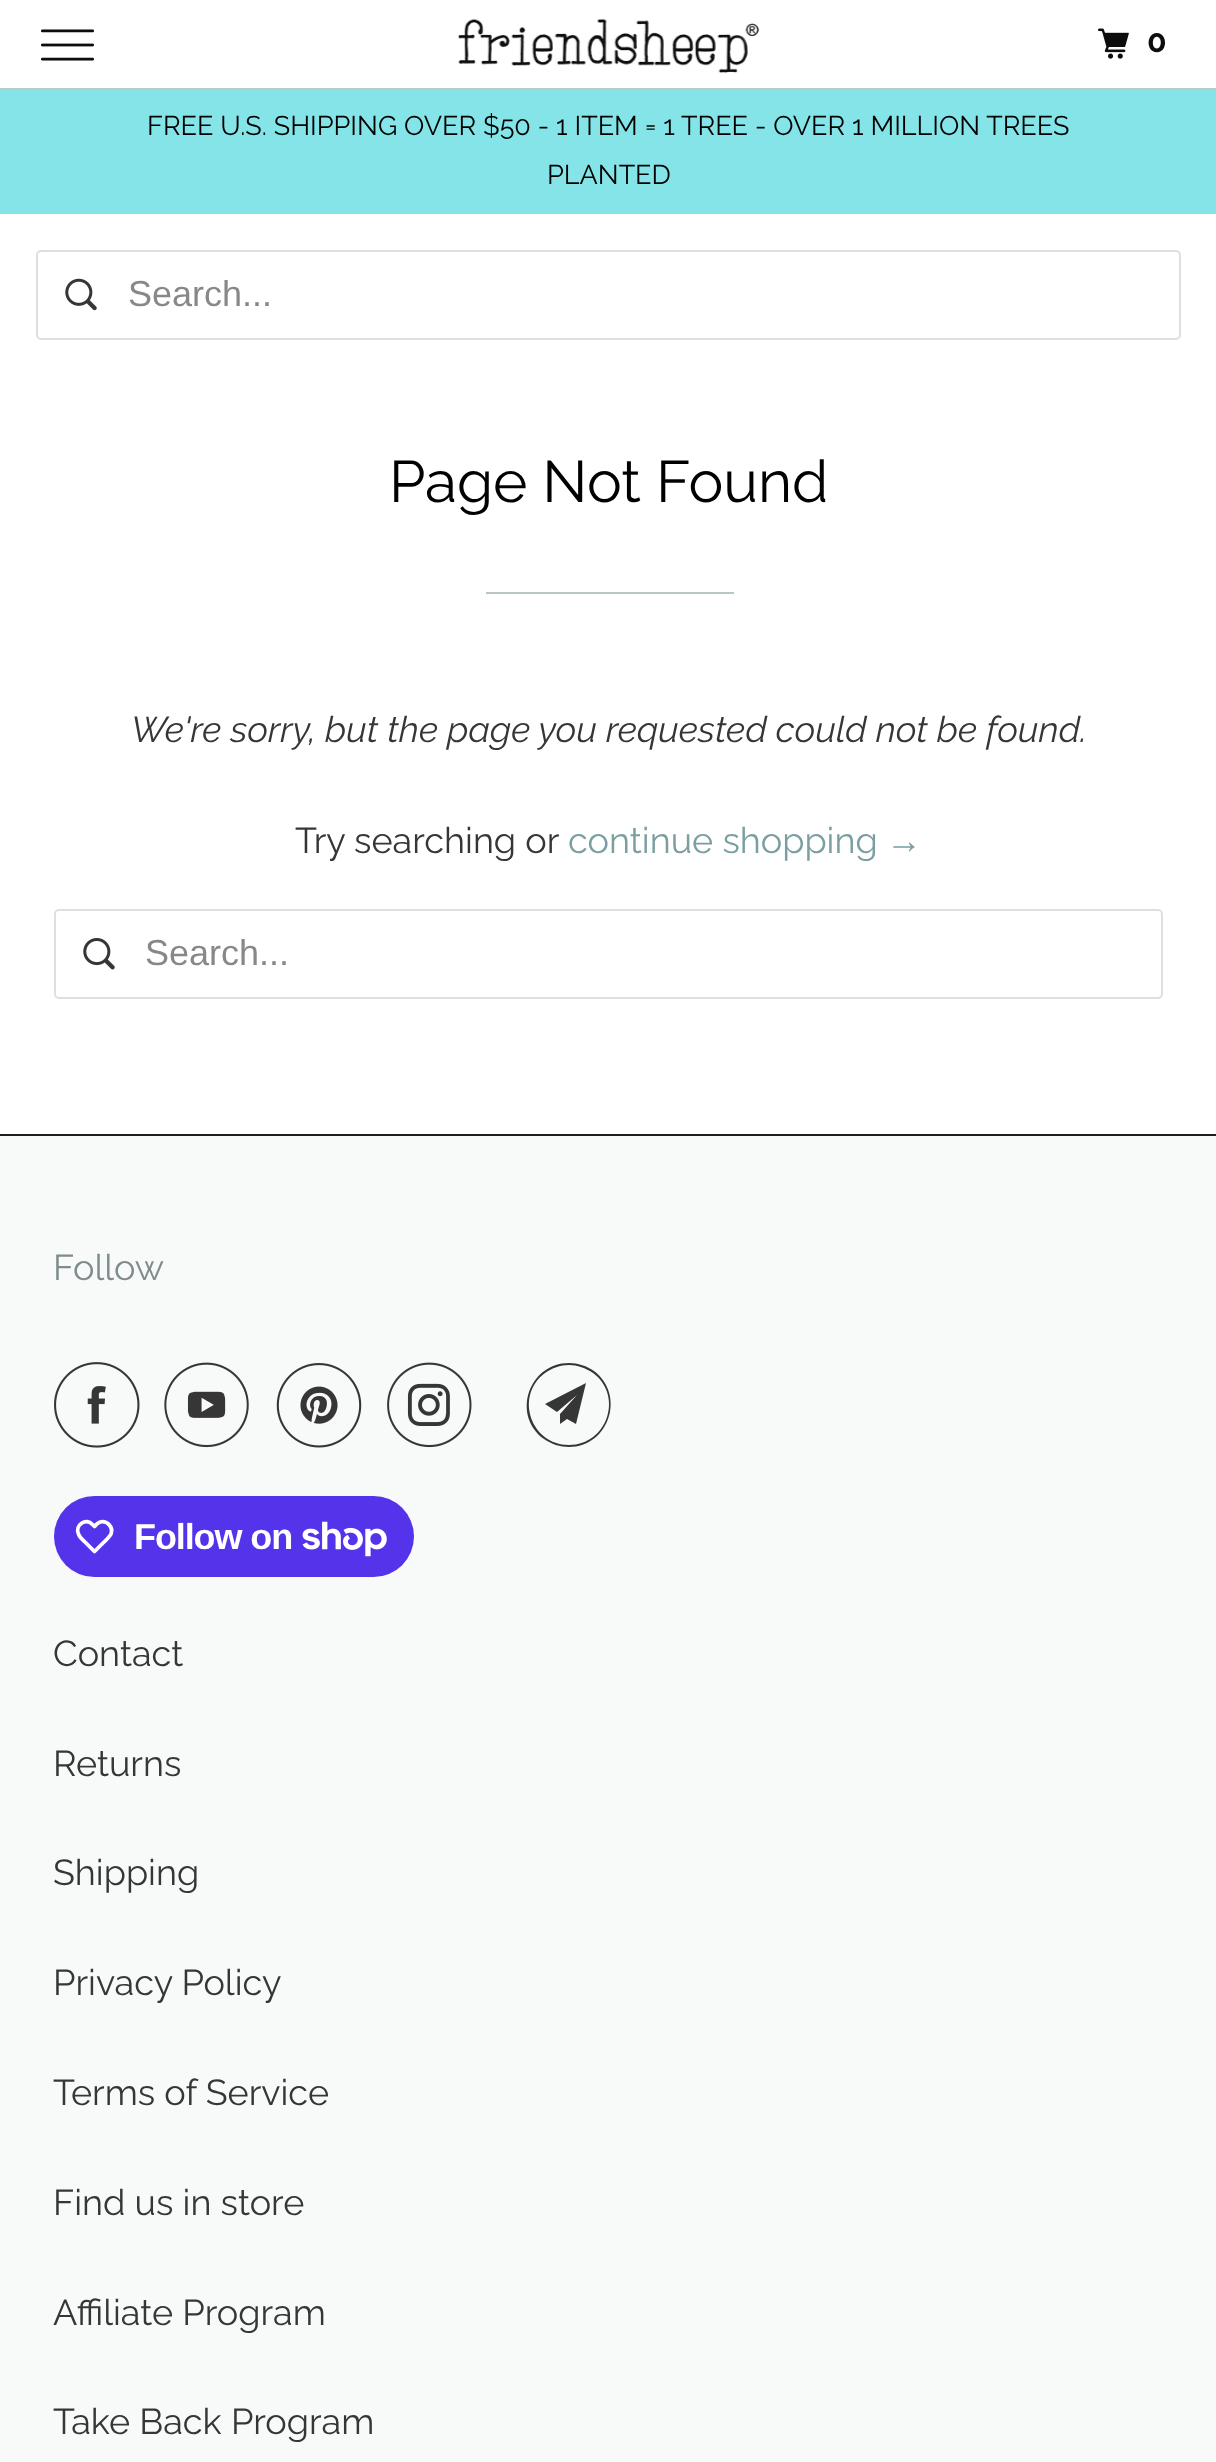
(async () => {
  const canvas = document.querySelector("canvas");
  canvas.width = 1216;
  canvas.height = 2462;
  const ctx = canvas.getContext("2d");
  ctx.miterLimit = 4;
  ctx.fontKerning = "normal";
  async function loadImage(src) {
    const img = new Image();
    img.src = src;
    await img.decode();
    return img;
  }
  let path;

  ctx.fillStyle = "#ffffff";
  ctx.fillRect(0, 0, 1216, 2462);
  ctx.fillStyle = "#bbc9c9";
  ctx.fillRect(0, 88, 1216, 2);
  ctx.drawImage(await loadImage("img/1.png"), 40, 29, 55, 32);
  ctx.drawImage(await loadImage("img/2.png"), 457, 18, 302, 55);
  ctx.drawImage(await loadImage("img/3.png"), 1098, 28, 31, 31);
  ctx.fillStyle = "#84e4e7";
  ctx.fillRect(0, 90, 1216, 124);
  ctx.beginPath();
  ctx.roundRect(37, 251, 1143, 88, 4);
  ctx.strokeStyle = "#dfdfdf";
  ctx.lineWidth = 2;
  ctx.stroke();
  ctx.drawImage(await loadImage("img/4.png"), 65, 278, 32, 33);
  ctx.fillStyle = "#b8c6c6";
  ctx.fillRect(486, 592, 248, 2);
  ctx.beginPath();
  ctx.roundRect(55, 910, 1107, 88, 4);
  ctx.stroke();
  ctx.drawImage(await loadImage("img/5.png"), 83, 938, 32, 32);
  ctx.fillStyle = "#f8fafa";
  ctx.fillRect(0, 1136, 1216, 1326);
  ctx.fillStyle = "#1b1f23";
  ctx.fillRect(0, 1134, 1216, 2);
  ctx.drawImage(await loadImage("img/6.png"), 54, 1362, 86, 86);
  ctx.drawImage(await loadImage("img/7.png"), 164, 1362, 85, 86);
  ctx.drawImage(await loadImage("img/8.png"), 276, 1363, 86, 85);
  ctx.drawImage(await loadImage("img/9.png"), 387, 1362, 85, 86);
  ctx.fillStyle = "#363636";
  path = new Path2D("M576 1424L567 1419L560 1424V1414L577 1395L557 1412L545 1404L586 1383ZM569 1365C560 1365 552 1368 545 1373C514 1396 531 1445 569 1445C607 1445 624 1396 593 1373C586 1368 577 1365 569 1365ZM569 1447C560 1447 551 1444 544 1439C511 1415 529 1363 569 1363C578 1363 587 1366 594 1371C626 1395 609 1447 569 1447Z");
  ctx.fill(path);
  ctx.fillStyle = "#5433eb";
  ctx.beginPath();
  ctx.roundRect(54, 1496, 360, 81, 40.5);
  ctx.fill();
  path = new Path2D("M92.5 1524.5L94.5 1526.5C96 1524.5 97.5 1523 100 1522C107 1520 113.5 1527 111 1534C109.5 1537 106.5 1539.5 104 1542L94.5 1551.5L85 1542C82.5 1539.5 79.5 1537.5 78.5 1534C74.5 1525 86 1517.5 92.5 1524.5Z");
  ctx.strokeStyle = "#ffffff";
  ctx.lineWidth = 3.8;
  ctx.lineJoin = "round";
  ctx.stroke(path);
  ctx.drawImage(await loadImage("img/10.png"), 302, 1521, 85, 36);
  ctx.letterSpacing = "2px";
  ctx.font = "bold 32px Raleway";
  ctx.fillStyle = "#0c0d0d";
  ctx.fillText("0", 1147, 52);
  ctx.letterSpacing = "0px";
  ctx.font = "100 27px Raleway";
  ctx.fillStyle = "#000000";
  ctx.fillText("FREE U.S. SHIPPING OVER $50 - 1 ITEM = 1 TREE - OVER 1 MILLION TREES", 147, 135);
  ctx.fillText("PLANTED", 547, 184);
  ctx.font = "36px Liberation Sans";
  ctx.fillStyle = "#888888";
  ctx.fillText("Search...", 128, 306);
  ctx.font = "100 58.5px Raleway";
  ctx.fillStyle = "#000000";
  ctx.fillText("Page Not Found", 389, 502);
  ctx.font = "italic 36px Raleway";
  ctx.fillStyle = "#363636";
  ctx.fillText("We're sorry, but the page you requested could not be found.", 131, 742);
  ctx.font = "100 36px Raleway";
  ctx.fillText("Try searching or", 295, 853);
  ctx.fillStyle = "#7a9ea1";
  ctx.fillText("continue shopping", 568, 853);
  ctx.font = "36px Liberation Sans";
  ctx.fillText("→", 886, 853);
  ctx.fillStyle = "#888888";
  ctx.fillText("Search...", 145, 965);
  ctx.font = "100 36px Raleway";
  ctx.fillStyle = "#7f8c8d";
  ctx.fillText("Follow", 53, 1280);
  ctx.letterSpacing = "-1.1px";
  ctx.font = "bold 36px Liberation Sans";
  ctx.fillStyle = "#ffffff";
  ctx.fillText("Follow on", 134, 1549);
  ctx.letterSpacing = "0px";
  ctx.font = "100 36px Raleway";
  ctx.fillStyle = "#363636";
  for (const [text, x, y] of [
    ["Contact", 53, 1666],
    ["Returns", 53, 1776],
    ["Shipping", 53, 1885],
    ["Privacy Policy", 53, 1995],
    ["Terms of Service", 53, 2105],
    ["Find us in store", 53, 2215],
    ["Affiliate Program", 53, 2325],
    ["Take Back Program", 53, 2434],
  ]) {
    ctx.fillText(text, x, y);
  }
})();
